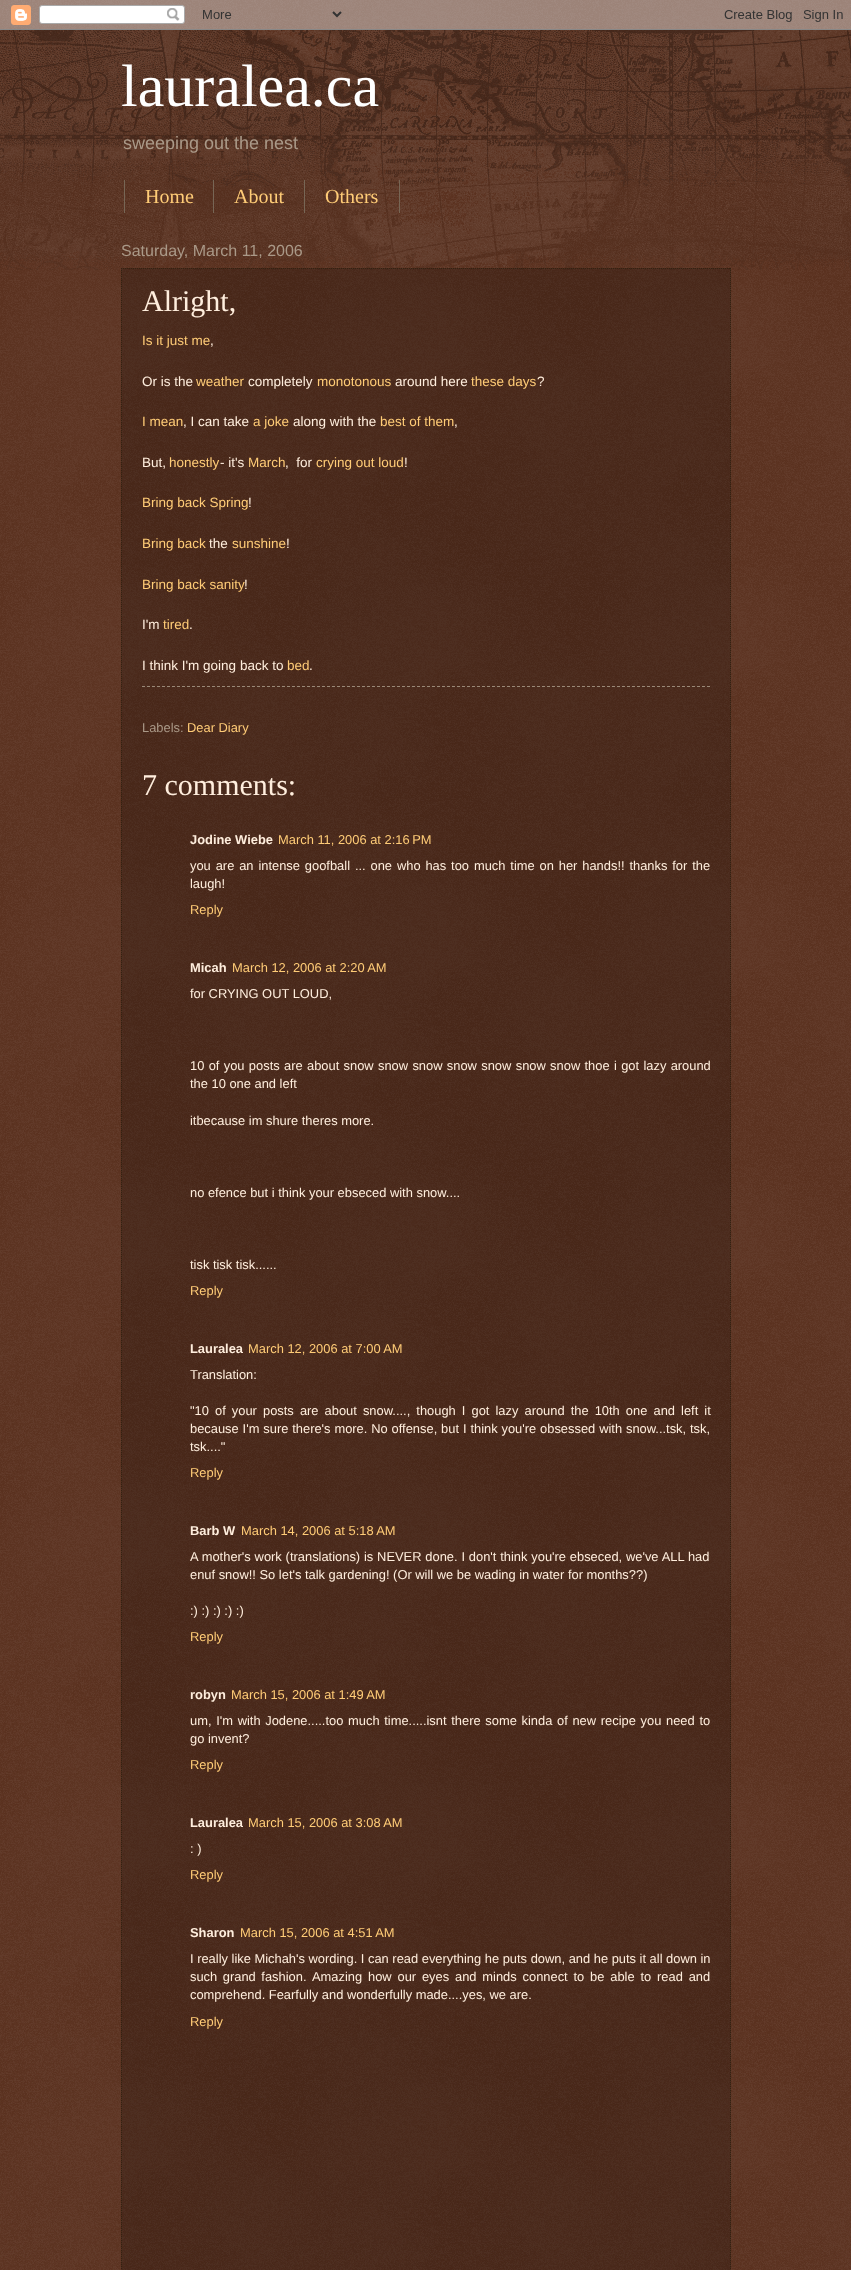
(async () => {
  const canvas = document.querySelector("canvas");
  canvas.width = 851;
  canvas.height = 2270;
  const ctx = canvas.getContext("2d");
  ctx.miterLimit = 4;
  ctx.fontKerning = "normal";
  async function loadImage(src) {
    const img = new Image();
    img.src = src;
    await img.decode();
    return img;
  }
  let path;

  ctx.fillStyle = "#441500";
  ctx.fillRect(0, 0, 851, 2270);
  ctx.drawImage(await loadImage("img/1.png"), 0, 0, 851, 2270);
  ctx.drawImage(await loadImage("img/2.png"), 0, 0, 851, 30);
  ctx.drawImage(await loadImage("img/3.png"), 0, 30, 851, 240);
  for (const [x, y, w, h, color] of [
    [213, 180, 1, 33, "#776655"],
    [124, 180, 1, 33, "#776655"],
    [304, 180, 1, 33, "#776655"],
    [399, 180, 1, 33, "#776655"],
    [121, 268, 610, 2002, "rgba(0, 0, 0, 0.2)"],
  ]) {
    ctx.fillStyle = color;
    ctx.fillRect(x, y, w, h);
  }
  path = new Path2D("M121 268.5H731");
  ctx.strokeStyle = "#332211";
  ctx.setLineDash([1, 1]);
  ctx.stroke(path);
  path = new Path2D("M730.5 268V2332");
  ctx.stroke(path);
  path = new Path2D("M121.5 268V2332");
  ctx.stroke(path);
  path = new Path2D("M142 686.5H710");
  ctx.strokeStyle = "#998877";
  ctx.setLineDash([3, 2]);
  ctx.stroke(path);
  ctx.font = "60px Liberation Serif";
  ctx.fillStyle = "#ffffff";
  ctx.fillText("lauralea.ca", 121, 106);
  ctx.font = "18px Liberation Sans";
  ctx.fillStyle = "#aa9988";
  ctx.fillText("sweeping out the nest", 123, 149);
  ctx.font = "20px Liberation Serif";
  ctx.fillStyle = "#ffcc77";
  for (const [text, x, y] of [
    ["Home", 145, 203],
    ["About", 234, 203],
    ["Others", 325, 203],
  ]) {
    ctx.fillText(text, x, y);
  }
  ctx.font = "16px Liberation Sans";
  ctx.fillStyle = "#aa9988";
  ctx.fillText("Saturday, March 11, 2006", 121, 256);
  ctx.font = "30px Liberation Serif";
  ctx.fillStyle = "#ffeedd";
  ctx.fillText("Alright,", 142, 311);
  ctx.font = "13.5px Liberation Sans";
  ctx.fillStyle = "#ffcc77";
  ctx.fillText("Is it just me", 142, 345);
  ctx.fillStyle = "#ffeedd";
  ctx.fillText(",", 210, 345);
  ctx.fillText("Or is the", 142, 386);
  ctx.fillStyle = "#ffcc77";
  ctx.fillText("weather", 196, 386);
  ctx.fillStyle = "#ffeedd";
  ctx.fillText("completely", 248, 386);
  ctx.fillStyle = "#ffcc77";
  ctx.fillText("monotonous", 317, 386);
  ctx.fillStyle = "#ffeedd";
  ctx.fillText("around here", 395, 386);
  ctx.fillStyle = "#ffcc77";
  ctx.fillText("these days", 471, 386);
  ctx.fillStyle = "#ffeedd";
  ctx.fillText("?", 537, 386);
  ctx.fillStyle = "#ffcc77";
  ctx.fillText("I mean", 142, 426);
  ctx.fillStyle = "#ffeedd";
  ctx.fillText(", I can take", 183, 426);
  ctx.fillStyle = "#ffcc77";
  ctx.fillText("a joke", 253, 426);
  ctx.fillStyle = "#ffeedd";
  ctx.fillText("along with the", 293, 426);
  ctx.fillStyle = "#ffcc77";
  ctx.fillText("best of them", 380, 426);
  ctx.fillStyle = "#ffeedd";
  ctx.fillText(",", 454, 426);
  ctx.fillText("But,", 142, 467);
  ctx.fillStyle = "#ffcc77";
  ctx.fillText("honestly", 169, 467);
  ctx.fillStyle = "#ffeedd";
  ctx.fillText("- it's", 220, 467);
  ctx.fillStyle = "#ffcc77";
  ctx.fillText("March", 248, 467);
  ctx.fillStyle = "#ffeedd";
  ctx.fillText(",  for", 285, 467);
  ctx.fillStyle = "#ffcc77";
  ctx.fillText("crying out loud", 316, 467);
  ctx.fillStyle = "#ffeedd";
  ctx.fillText("!", 404, 467);
  ctx.fillStyle = "#ffcc77";
  ctx.fillText("Bring back Spring", 142, 507);
  ctx.fillStyle = "#ffeedd";
  ctx.fillText("!", 248, 507);
  ctx.fillStyle = "#ffcc77";
  ctx.fillText("Bring back", 142, 548);
  ctx.fillStyle = "#ffeedd";
  ctx.fillText("the", 209, 548);
  ctx.fillStyle = "#ffcc77";
  ctx.fillText("sunshine", 232, 548);
  ctx.fillStyle = "#ffeedd";
  ctx.fillText("!", 286, 548);
  ctx.fillStyle = "#ffcc77";
  ctx.fillText("Bring back sanity", 142, 589);
  ctx.fillStyle = "#ffeedd";
  ctx.fillText("!", 244, 589);
  ctx.fillText("I'm", 142, 629);
  ctx.fillStyle = "#ffcc77";
  ctx.fillText("tired", 163, 629);
  ctx.fillStyle = "#ffeedd";
  ctx.fillText(".", 189, 629);
  ctx.fillText("I think I'm going back to", 142, 670);
  ctx.fillStyle = "#ffcc77";
  ctx.fillText("bed", 287, 670);
  ctx.fillStyle = "#ffeedd";
  ctx.fillText(".", 309, 670);
  ctx.font = "12.9px Liberation Sans";
  ctx.fillStyle = "#aa9988";
  ctx.fillText("Labels:", 142, 732);
  ctx.fillStyle = "#ffcc77";
  ctx.fillText("Dear Diary", 187, 732);
  ctx.font = "30px Liberation Serif";
  ctx.fillStyle = "#ffeedd";
  ctx.fillText("7 comments:", 142, 795);
  ctx.font = "bold 12.9px Liberation Sans";
  ctx.fillText("Jodine Wiebe", 190, 844);
  ctx.font = "12.9px Liberation Sans";
  ctx.fillStyle = "#ffcc77";
  ctx.fillText("March 11, 2006 at 2:16 PM", 278, 844);
  ctx.wordSpacing = "1.3px";
  ctx.fillStyle = "#ffeedd";
  ctx.fillText("you are an intense goofball ... one who has too much time on her hands!! thanks for the", 190, 870);
  ctx.wordSpacing = "0px";
  ctx.fillText("laugh!", 190, 888);
  ctx.fillStyle = "#ffcc77";
  ctx.fillText("Reply", 190, 914);
  ctx.font = "bold 12.9px Liberation Sans";
  ctx.fillStyle = "#ffeedd";
  ctx.fillText("Micah", 190, 972);
  ctx.font = "12.9px Liberation Sans";
  ctx.fillStyle = "#ffcc77";
  ctx.fillText("March 12, 2006 at 2:20 AM", 232, 972);
  ctx.fillStyle = "#ffeedd";
  ctx.fillText("for CRYING OUT LOUD,", 190, 998);
  ctx.wordSpacing = "0.75px";
  ctx.fillText("10 of you posts are about snow snow snow snow snow snow snow thoe i got lazy around", 190, 1070);
  ctx.wordSpacing = "0px";
  for (const [text, x, y] of [
    ["the 10 one and left", 190, 1088],
    ["itbecause im shure theres more.", 190, 1125],
    ["no efence but i think your ebseced with snow....", 190, 1197],
    ["tisk tisk tisk......", 190, 1269],
  ]) {
    ctx.fillText(text, x, y);
  }
  ctx.fillStyle = "#ffcc77";
  ctx.fillText("Reply", 190, 1295);
  ctx.font = "bold 12.9px Liberation Sans";
  ctx.fillStyle = "#ffeedd";
  ctx.fillText("Lauralea", 190, 1353);
  ctx.font = "12.9px Liberation Sans";
  ctx.fillStyle = "#ffcc77";
  ctx.fillText("March 12, 2006 at 7:00 AM", 248, 1353);
  ctx.fillStyle = "#ffeedd";
  ctx.fillText("Translation:", 190, 1379);
  ctx.wordSpacing = "2.5px";
  ctx.fillText("\"10 of your posts are about snow...., though I got lazy around the 10th one and left it", 190, 1415);
  ctx.wordSpacing = "0.3px";
  ctx.fillText("because I'm sure there's more. No offense, but I think you're obsessed with snow...tsk, tsk,", 190, 1433);
  ctx.wordSpacing = "0px";
  ctx.fillText("tsk....\"", 190, 1451);
  ctx.fillStyle = "#ffcc77";
  ctx.fillText("Reply", 190, 1477);
  ctx.font = "bold 12.9px Liberation Sans";
  ctx.fillStyle = "#ffeedd";
  ctx.fillText("Barb W", 190, 1535);
  ctx.font = "12.9px Liberation Sans";
  ctx.fillStyle = "#ffcc77";
  ctx.fillText("March 14, 2006 at 5:18 AM", 241, 1535);
  ctx.wordSpacing = "0.25px";
  ctx.fillStyle = "#ffeedd";
  ctx.fillText("A mother's work (translations) is NEVER done. I don't think you're ebseced, we've ALL had", 190, 1561);
  ctx.wordSpacing = "0px";
  ctx.fillText("enuf snow!! So let's talk gardening! (Or will we be wading in water for months??)", 190, 1579);
  ctx.fillText(":) :) :) :) :)", 190, 1615);
  ctx.fillStyle = "#ffcc77";
  ctx.fillText("Reply", 190, 1641);
  ctx.font = "bold 12.9px Liberation Sans";
  ctx.fillStyle = "#ffeedd";
  ctx.fillText("robyn", 190, 1699);
  ctx.font = "12.9px Liberation Sans";
  ctx.fillStyle = "#ffcc77";
  ctx.fillText("March 15, 2006 at 1:49 AM", 231, 1699);
  ctx.wordSpacing = "1.1px";
  ctx.fillStyle = "#ffeedd";
  ctx.fillText("um, I'm with Jodene.....too much time.....isnt there some kinda of new recipe you need to", 190, 1725);
  ctx.wordSpacing = "0px";
  ctx.fillText("go invent?", 190, 1743);
  ctx.fillStyle = "#ffcc77";
  ctx.fillText("Reply", 190, 1769);
  ctx.font = "bold 12.9px Liberation Sans";
  ctx.fillStyle = "#ffeedd";
  ctx.fillText("Lauralea", 190, 1827);
  ctx.font = "12.9px Liberation Sans";
  ctx.fillStyle = "#ffcc77";
  ctx.fillText("March 15, 2006 at 3:08 AM", 248, 1827);
  ctx.fillStyle = "#ffeedd";
  ctx.fillText(": )", 190, 1853);
  ctx.fillStyle = "#ffcc77";
  ctx.fillText("Reply", 190, 1879);
  ctx.font = "bold 12.9px Liberation Sans";
  ctx.fillStyle = "#ffeedd";
  ctx.fillText("Sharon", 190, 1937);
  ctx.font = "12.9px Liberation Sans";
  ctx.fillStyle = "#ffcc77";
  ctx.fillText("March 15, 2006 at 4:51 AM", 240, 1937);
  ctx.fillStyle = "#ffeedd";
  ctx.fillText("I really like Michah's wording. I can read everything he puts down, and he puts it all down in", 190, 1963);
  ctx.wordSpacing = "2px";
  ctx.fillText("such grand fashion.", 190, 1981);
  ctx.wordSpacing = "2.25px";
  ctx.fillText("Amazing how our eyes and minds connect to be able to read and", 312, 1981);
  ctx.wordSpacing = "0px";
  ctx.fillText("comprehend. Fearfully and wonderfully made....yes, we are.", 190, 1999);
  ctx.fillStyle = "#ffcc77";
  ctx.fillText("Reply", 190, 2026);
})();
